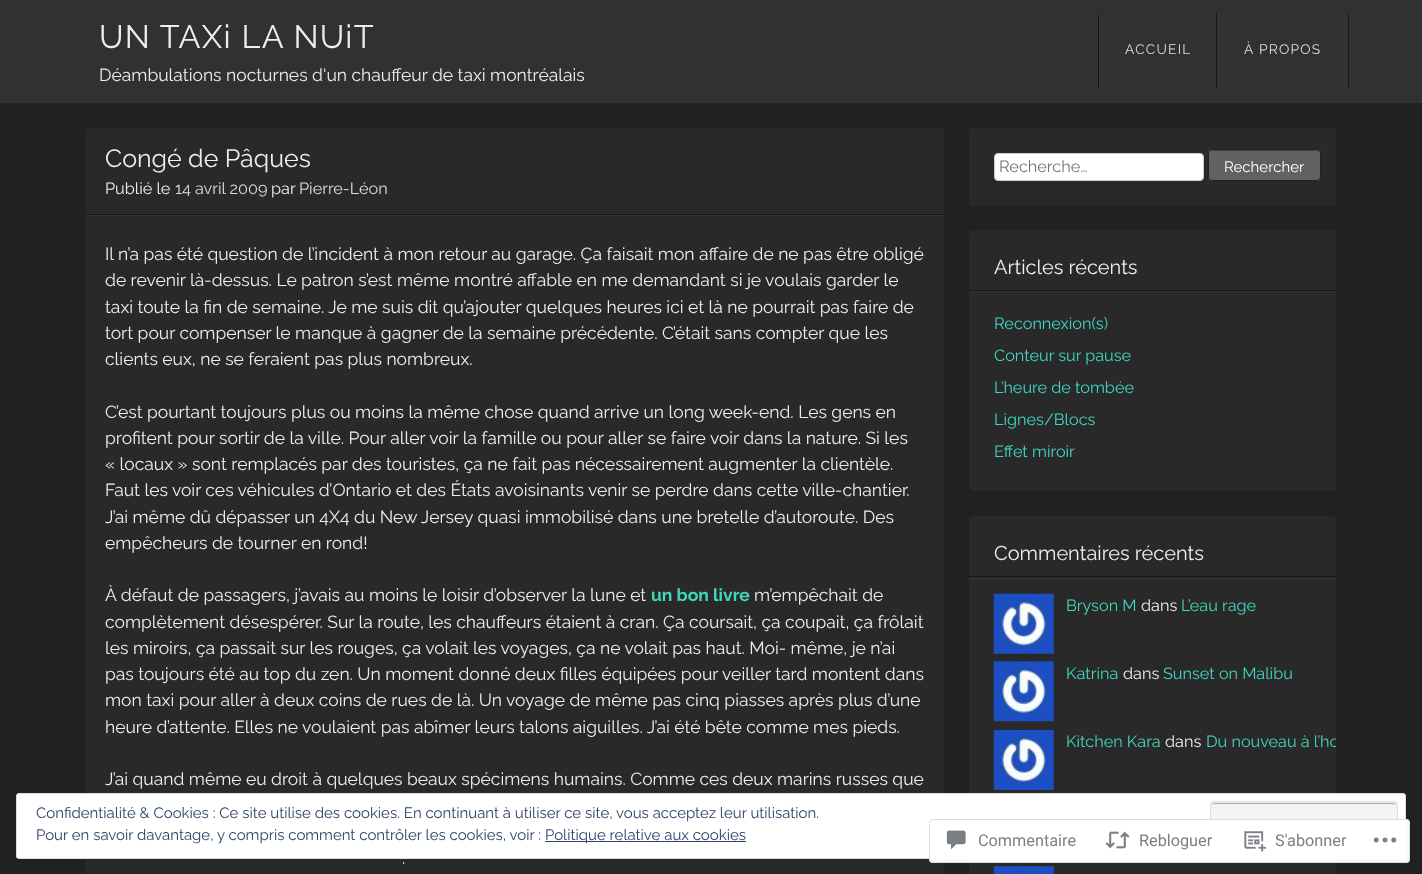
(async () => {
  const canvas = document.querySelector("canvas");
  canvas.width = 1422;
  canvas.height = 874;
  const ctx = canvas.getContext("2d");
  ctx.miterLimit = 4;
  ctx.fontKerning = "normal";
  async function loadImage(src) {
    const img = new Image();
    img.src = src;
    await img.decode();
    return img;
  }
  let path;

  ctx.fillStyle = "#212121";
  ctx.fillRect(0, 0, 1422, 874);
  for (const [x, y, w, h, color] of [
    [0, 0, 1422, 103, "#313131"],
    [1348, 14, 1, 75, "#161616"],
    [1098, 14, 1, 75, "#161616"],
    [1099, 14, 1, 75, "#363636"],
    [1216, 14, 1, 75, "#161616"],
    [1346, 14, 1, 75, "#363636"],
    [1218, 14, 1, 75, "#363636"],
  ]) {
    ctx.fillStyle = color;
    ctx.fillRect(x, y, w, h);
  }
  ctx.fillStyle = "#292929";
  ctx.beginPath();
  ctx.roundRect(86, 128, 858, 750, 4);
  ctx.fill();
  ctx.fillStyle = "#161616";
  ctx.fillRect(86, 214, 858, 1);
  ctx.fillStyle = "#363636";
  ctx.fillRect(86, 215, 858, 1);
  ctx.fillStyle = "#292929";
  ctx.beginPath();
  ctx.roundRect(969, 128, 367, 78, 4);
  ctx.fill();
  ctx.fillStyle = "#ffffff";
  ctx.beginPath();
  ctx.roundRect(994.5, 153.5, 209, 27, 3.5);
  ctx.fill();
  ctx.strokeStyle = "#cccccc";
  ctx.stroke();
  ctx.fillStyle = "#616161";
  ctx.beginPath();
  ctx.roundRect(1208, 149, 113, 32, 4);
  ctx.fill();
  ctx.fillStyle = "#444444";
  path = new Path2D("M1211 151H1318C1319 151 1320 152 1320 154V152C1320 151 1319 150 1318 150H1212C1210 150 1209 151 1209 152V154C1209 152 1210 151 1211 151Z");
  ctx.fill(path);
  ctx.beginPath();
  ctx.roundRect(1208.5, 149.5, 112, 31, 3.5);
  ctx.strokeStyle = "#222222";
  ctx.stroke();
  ctx.fillStyle = "#292929";
  ctx.beginPath();
  ctx.roundRect(969, 230, 367, 261, 4);
  ctx.fill();
  ctx.fillStyle = "#363636";
  ctx.fillRect(969, 291, 367, 1);
  ctx.fillStyle = "#161616";
  ctx.fillRect(969, 290, 367, 1);
  ctx.fillStyle = "#292929";
  ctx.beginPath();
  ctx.roundRect(969, 516, 367, 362, 4);
  ctx.fill();
  ctx.fillStyle = "#363636";
  ctx.fillRect(969, 578, 367, 1);
  ctx.fillStyle = "#161616";
  ctx.fillRect(969, 576, 367, 1);
  ctx.drawImage(await loadImage("img/1.png"), 993, 593, 61, 61);
  ctx.drawImage(await loadImage("img/2.png"), 993, 661, 61, 61);
  ctx.drawImage(await loadImage("img/3.png"), 993, 730, 61, 60);
  ctx.drawImage(await loadImage("img/4.png"), 993, 866, 61, 8);
  ctx.fillStyle = "#ffffff";
  ctx.beginPath();
  ctx.roundRect(16, 793, 1390, 66, 4);
  ctx.fill();
  ctx.fillStyle = "#dedede";
  path = new Path2D("M16 797V855C16 856 16 857 17 858V794ZM20 793L17 794H1405L1402 793ZM1406 797L1405 794V858C1406 857 1406 856 1406 855ZM1402 859L1405 858H17L20 859Z");
  ctx.fill(path, "evenodd");
  ctx.fillStyle = "#f3f3f3";
  ctx.beginPath();
  ctx.roundRect(1210, 801, 188, 49, 4);
  ctx.fill();
  ctx.fillStyle = "#aaaaaa";
  path = new Path2D("M1214 804H1394C1395 804 1396 805 1396 806C1396 804 1395 803 1394 803H1214L1212 804L1211 806C1211 805 1212 804 1214 804Z");
  ctx.fill(path);
  ctx.beginPath();
  ctx.roundRect(1210.5, 801.5, 187, 48, 3.5);
  ctx.strokeStyle = "#dedede";
  ctx.stroke();
  ctx.fillStyle = "#2e4467";
  ctx.fillRect(545, 841, 201, 1);
  ctx.fillStyle = "rgba(255, 255, 255, 0.98)";
  ctx.beginPath();
  ctx.roundRect(929, 819, 481, 44, 4);
  ctx.fill();
  ctx.beginPath();
  ctx.roundRect(929.5, 819.5, 480, 43, 3.5);
  ctx.strokeStyle = "rgba(220, 220, 222, 0.98)";
  ctx.stroke();
  ctx.drawImage(await loadImage("img/5.png"), 946, 830, 20, 20);
  ctx.drawImage(await loadImage("img/6.png"), 1105, 831, 25, 18);
  ctx.drawImage(await loadImage("img/7.png"), 1244, 831, 22, 21);
  ctx.drawImage(await loadImage("img/8.png"), 1373, 837, 24, 6);
  ctx.letterSpacing = "1.25px";
  ctx.font = "32.5px Raleway";
  ctx.fillStyle = "#eeeeee";
  ctx.fillText("UN TAXi LA NUiT", 99, 48);
  ctx.letterSpacing = "0px";
  ctx.font = "17.5px Raleway";
  ctx.fillText("Déambulations nocturnes d'un chauffeur de taxi montréalais", 99, 81);
  ctx.letterSpacing = "1.25px";
  ctx.font = "13.75px Raleway";
  ctx.fillStyle = "#dddddd";
  ctx.fillText("ACCUEIL", 1125, 54);
  ctx.fillText("À PROPOS", 1244, 54);
  ctx.letterSpacing = "0px";
  ctx.font = "25px Raleway";
  ctx.fillStyle = "#eeeeee";
  ctx.fillText("Congé de Pâques", 105, 167);
  ctx.font = "16.25px Raleway";
  ctx.fillText("Publié le", 105, 194);
  ctx.fillStyle = "#dddddd";
  ctx.fillText("14 avril 2009", 175, 194);
  ctx.fillStyle = "#eeeeee";
  ctx.fillText("par", 271, 194);
  ctx.fillStyle = "#dddddd";
  ctx.fillText("Pierre-Léon", 299, 194);
  ctx.font = "17.5px Raleway";
  ctx.fillStyle = "#eeeeee";
  for (const [text, x, y] of [
    ["Il n’a pas été question de l’incident à mon retour au garage. Ça faisait mon affaire de ne pas être obligé", 105, 260],
    ["de revenir là-dessus. Le patron s’est même montré affable en me demandant si je voulais garder le", 105, 286],
    ["taxi toute la fin de semaine. Je me suis dit qu’ajouter quelques heures ici et là ne pourrait pas faire de", 105, 313],
    ["tort pour compenser le manque à gagner de la semaine précédente. C’était sans compter que les", 105, 339],
    ["clients eux, ne se feraient pas plus nombreux.", 105, 365],
    ["C’est pourtant toujours plus ou moins la même chose quand arrive un long week-end. Les gens en", 105, 418],
    ["profitent pour sortir de la ville. Pour aller voir la famille ou pour aller se faire voir dans la nature. Si les", 105, 444],
    ["« locaux » sont remplacés par des touristes, ça ne fait pas nécessairement augmenter la clientèle.", 105, 470],
    ["Faut les voir ces véhicules d’Ontario et des États avoisinants venir se perdre dans cette ville-chantier.", 105, 496],
    ["J’ai même dû dépasser un 4X4 du New Jersey quasi immobilisé dans une bretelle d’autoroute. Des", 105, 523],
    ["empêcheurs de tourner en rond!", 105, 549],
    ["À défaut de passagers, j’avais au moins le loisir d’observer la lune et", 105, 601],
  ]) {
    ctx.fillText(text, x, y);
  }
  ctx.font = "bold 17.5px Raleway";
  ctx.fillStyle = "#40d7bc";
  ctx.fillText("un bon livre", 651, 601);
  ctx.font = "17.5px Raleway";
  ctx.fillStyle = "#eeeeee";
  for (const [text, x, y] of [
    ["m’empêchait de", 754, 601],
    ["complètement désespérer. Sur la route, les chauffeurs étaient à cran. Ça coursait, ça coupait, ça frôlait", 105, 628],
    ["les miroirs, ça passait sur les rouges, ça volait les voyages, ça ne volait pas haut. Moi- même, je n’ai", 105, 654],
    ["pas toujours été au top du zen. Un moment donné deux filles équipées pour veiller tard montent dans", 105, 680],
    ["mon taxi pour aller à deux coins de rues de là. Un voyage de même pas cinq piasses après plus d’une", 105, 706],
    ["heure d’attente. Elles ne voulaient pas abîmer leurs talons aiguilles. J’ai été bête comme mes pieds.", 105, 733],
    ["J’ai quand même eu droit à quelques beaux spécimens humains. Comme ces deux marins russes que", 105, 785],
    [".", 402, 864],
  ]) {
    ctx.fillText(text, x, y);
  }
  ctx.font = "16.25px Raleway";
  ctx.fillStyle = "#757575";
  ctx.fillText("Recherche…", 999, 172);
  ctx.font = "15px Raleway";
  ctx.fillStyle = "#ffffff";
  ctx.fillText("Rechercher", 1224, 172);
  ctx.font = "20px Raleway";
  ctx.fillStyle = "#eeeeee";
  ctx.fillText("Articles récents", 994, 274);
  ctx.font = "16.25px Raleway";
  ctx.fillStyle = "#40d7bc";
  for (const [text, x, y] of [
    ["Reconnexion(s)", 994, 329],
    ["Conteur sur pause", 994, 361],
    ["L’heure de tombée", 994, 393],
    ["Lignes/Blocs", 994, 425],
    ["Effet miroir", 994, 457],
  ]) {
    ctx.fillText(text, x, y);
  }
  ctx.font = "20px Raleway";
  ctx.fillStyle = "#eeeeee";
  ctx.fillText("Commentaires récents", 994, 560);
  ctx.font = "16.25px Raleway";
  ctx.fillStyle = "#40d7bc";
  ctx.fillText("Bryson M", 1066, 611);
  ctx.fillStyle = "#eeeeee";
  ctx.fillText("dans", 1141, 611);
  ctx.fillStyle = "#40d7bc";
  ctx.fillText("L’eau rage", 1181, 611);
  ctx.fillText("Katrina", 1066, 679);
  ctx.fillStyle = "#eeeeee";
  ctx.fillText("dans", 1123, 679);
  ctx.fillStyle = "#40d7bc";
  ctx.fillText("Sunset on Malibu", 1163, 679);
  ctx.fillText("Kitchen Kara", 1066, 747);
  ctx.fillStyle = "#eeeeee";
  ctx.fillText("dans", 1165, 747);
  ctx.save();
  ctx.beginPath();
  ctx.roundRect(969, 516, 367, 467, 4);
  ctx.clip();
  ctx.fillStyle = "#40d7bc";
  ctx.fillText("Du nouveau à l’ho", 1206, 747);
  ctx.restore();
  ctx.font = "15px Raleway";
  ctx.fillStyle = "#2e4467";
  for (const [text, x, y] of [
    ["Confidentialité & Cookies : Ce site utilise des cookies. En continuant à utiliser ce site, vous acceptez leur utilisation.", 36, 818],
    ["Pour en savoir davantage, y compris comment contrôler les cookies, voir :", 36, 840],
    ["Politique relative aux cookies", 545, 840],
  ]) {
    ctx.fillText(text, x, y);
  }
  ctx.font = "16.25px Roboto";
  ctx.fillStyle = "#7b7f85";
  for (const [text, x, y] of [
    ["Commentaire", 978, 846],
    ["Rebloguer", 1139, 846],
    ["S'abonner", 1275, 846],
  ]) {
    ctx.fillText(text, x, y);
  }
})();
